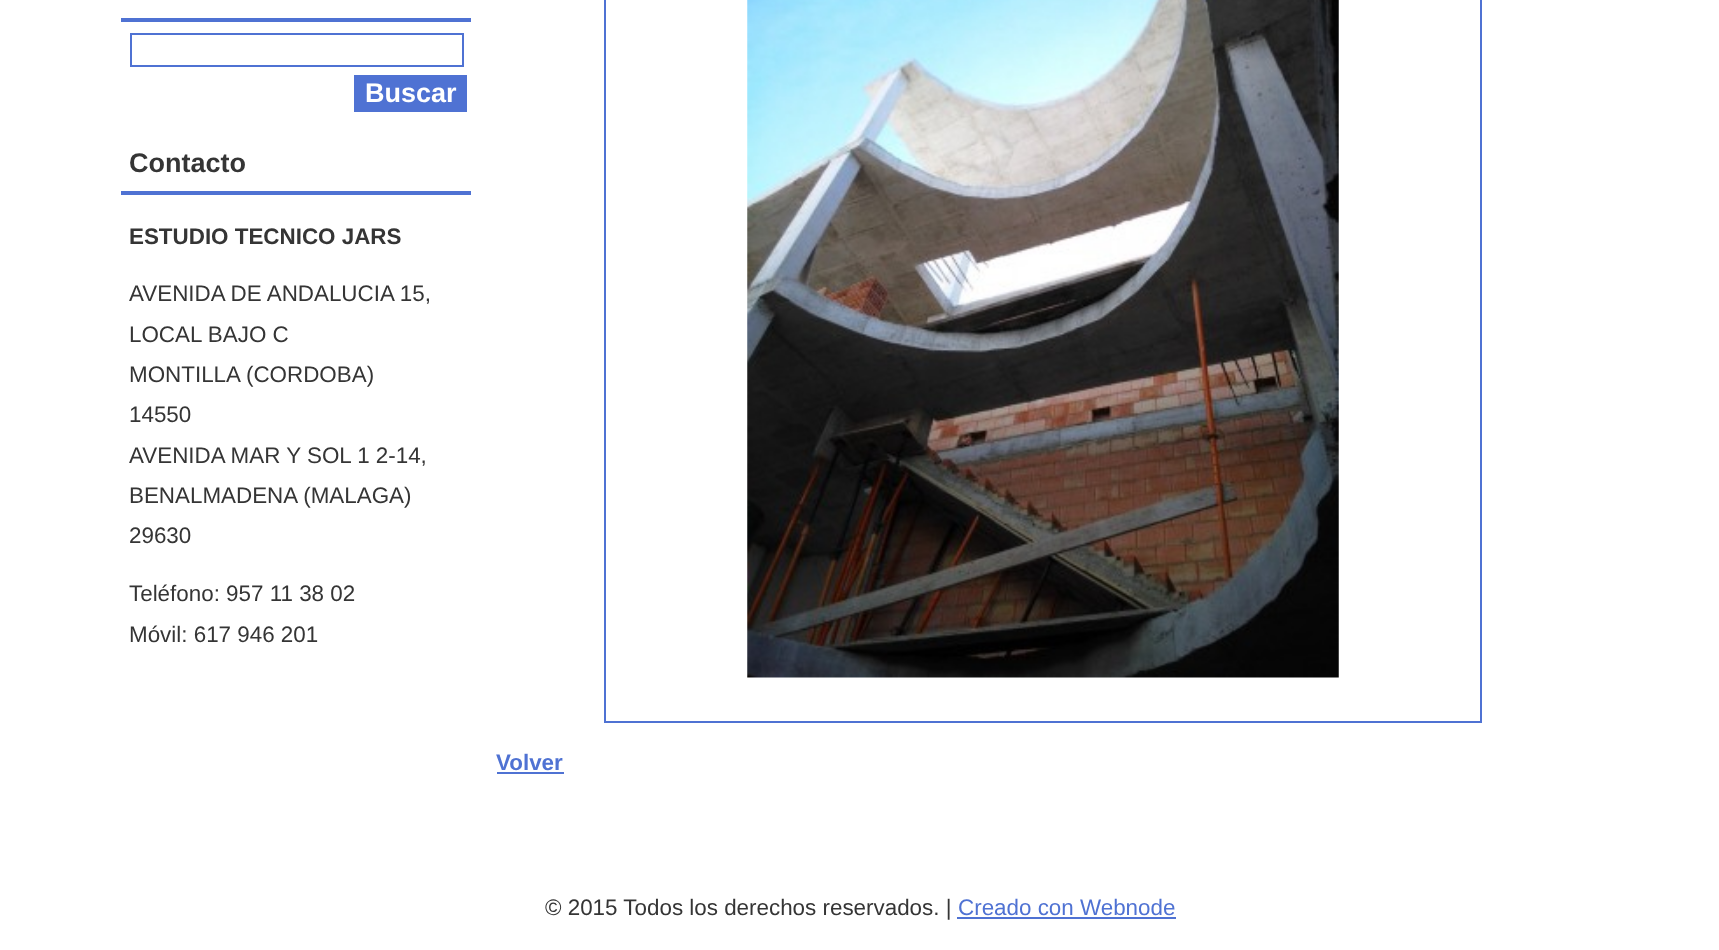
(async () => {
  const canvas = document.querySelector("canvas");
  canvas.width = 1719;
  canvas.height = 950;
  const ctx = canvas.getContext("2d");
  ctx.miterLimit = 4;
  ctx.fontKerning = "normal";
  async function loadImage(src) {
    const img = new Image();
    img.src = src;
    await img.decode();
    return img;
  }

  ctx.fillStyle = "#ffffff";
  ctx.fillRect(0, 0, 1719, 950);
  ctx.fillStyle = "#4f72d3";
  ctx.fillRect(121, 18, 350, 4);
  ctx.strokeStyle = "#4f72d3";
  ctx.lineWidth = 2;
  ctx.strokeRect(131, 34, 332, 32);
  ctx.fillRect(354, 75, 113, 37);
  ctx.fillRect(121, 191, 350, 4);
  ctx.strokeRect(605, -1, 876, 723);
  ctx.drawImage(await loadImage("img/1.png"), 747, 0, 592, 678);
  ctx.fillRect(497, 772, 67, 2);
  ctx.fillRect(957, 917, 219, 2);
  ctx.font = "bold 27px Liberation Sans";
  ctx.fillStyle = "#ffffff";
  ctx.fillText("Buscar", 365, 102);
  ctx.fillStyle = "#353535";
  ctx.fillText("Contacto", 129, 172);
  ctx.font = "bold 22.4px Liberation Sans";
  ctx.fillText("ESTUDIO TECNICO JARS", 129, 244);
  ctx.font = "22.4px Liberation Sans";
  for (const [text, x, y] of [
    ["AVENIDA DE ANDALUCIA 15,", 129, 301],
    ["LOCAL BAJO C", 129, 342],
    ["MONTILLA (CORDOBA)", 129, 382],
    ["14550", 129, 422],
    ["AVENIDA MAR Y SOL 1 2-14,", 129, 463],
    ["BENALMADENA (MALAGA)", 129, 503],
    ["29630", 129, 543],
    ["Teléfono: 957 11 38 02", 129, 601],
    ["Móvil: 617 946 201", 129, 642],
  ]) {
    ctx.fillText(text, x, y);
  }
  ctx.font = "bold 22.4px Liberation Sans";
  ctx.fillStyle = "#4f72d3";
  ctx.fillText("Volver", 496, 770);
  ctx.font = "22.4px Liberation Sans";
  ctx.fillStyle = "#353535";
  ctx.fillText("© 2015 Todos los derechos reservados. |", 545, 915);
  ctx.fillStyle = "#4f72d3";
  ctx.fillText("Creado con Webnode", 958, 915);
})();
